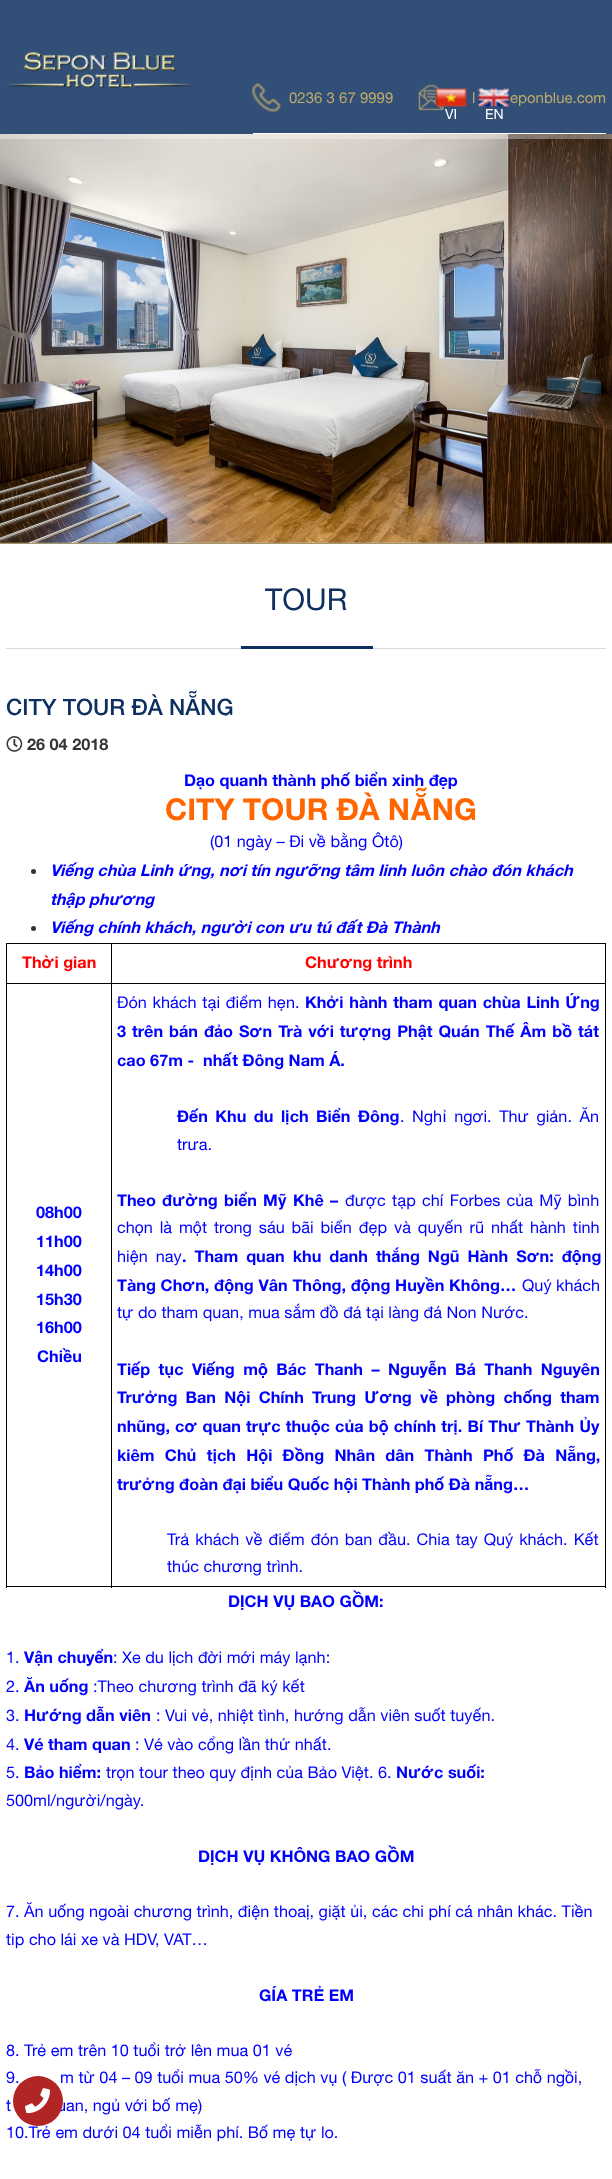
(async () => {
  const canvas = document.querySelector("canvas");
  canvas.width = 612;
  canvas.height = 2179;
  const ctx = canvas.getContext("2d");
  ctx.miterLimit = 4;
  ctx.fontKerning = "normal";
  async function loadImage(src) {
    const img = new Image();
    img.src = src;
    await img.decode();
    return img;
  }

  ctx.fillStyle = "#ffffff";
  ctx.fillRect(0, 0, 612, 2179);
  ctx.fillStyle = "#324f78";
  ctx.fillRect(0, 0, 612, 134);
  ctx.drawImage(await loadImage("img/1.png"), 6, 52, 187, 36);
  ctx.fillStyle = "#ffffff";
  ctx.fillRect(253, 133, 353, 1);
  ctx.drawImage(await loadImage("img/2.png"), 252, 83, 29, 29);
  ctx.drawImage(await loadImage("img/3.png"), 418, 84, 26, 27);
  ctx.drawImage(await loadImage("img/4.png"), 435, 88, 32, 19);
  ctx.drawImage(await loadImage("img/5.png"), 478, 88, 31, 19);
  ctx.drawImage(await loadImage("img/6.png"), 0, 134, 612, 409);
  for (const [x, y, w, h, color] of [
    [0, 134, 612, 5, "rgba(255, 255, 255, 0.35)"],
    [0, 543, 612, 1, "#a2966b"],
    [6, 648, 600, 1, "#d9d9d9"],
    [241, 646, 132, 3, "#0e3060"],
  ]) {
    ctx.fillStyle = color;
    ctx.fillRect(x, y, w, h);
  }
  ctx.drawImage(await loadImage("img/7.png"), 6, 736, 17, 16);
  ctx.fillStyle = "#333333";
  ctx.beginPath();
  ctx.arc(33.5, 871.5, 2.5, 0, Math.PI * 2);
  ctx.fill();
  ctx.beginPath();
  ctx.arc(33.5, 928.5, 2.5, 0, Math.PI * 2);
  ctx.fill();
  for (const [x, y, w, h, color] of [
    [6, 943, 600, 1, "#000000"],
    [605, 943, 1, 645, "#000000"],
    [6, 1586, 600, 1, "#000000"],
    [6, 943, 1, 645, "#000000"],
    [111, 983, 495, 1, "#000000"],
    [111, 983, 1, 605, "#000000"],
    [6, 983, 107, 1, "#000000"],
    [111, 943, 1, 41, "#000000"],
  ]) {
    ctx.fillStyle = color;
    ctx.fillRect(x, y, w, h);
  }
  ctx.font = "15px Helvetica Neue";
  ctx.fillStyle = "#beaa6b";
  for (const [text, x, y] of [
    ["0236 3 67 9999", 289, 103],
    ["l", 472, 103],
    ["eponblue.com", 510, 103],
  ]) {
    ctx.fillText(text, x, y);
  }
  ctx.font = "14px Helvetica Neue";
  ctx.fillStyle = "#ffffff";
  ctx.fillText("VI", 445, 119);
  ctx.fillText("EN", 485, 119);
  ctx.font = "30px Helvetica Neue";
  ctx.fillStyle = "#0e3060";
  ctx.fillText("TOUR", 265, 610);
  ctx.font = "500 22.5px Helvetica Neue";
  ctx.fillText("CITY TOUR ĐÀ NẴNG", 6, 715);
  ctx.font = "bold 16.25px Helvetica Neue";
  ctx.fillStyle = "#333333";
  ctx.fillText("26 04 2018", 27, 750);
  ctx.fillStyle = "#0000ff";
  ctx.fillText("Dạo quanh thành phố biển xinh đẹp", 184, 786);
  ctx.font = "bold 30px Helvetica Neue";
  ctx.fillStyle = "#ff6600";
  ctx.fillText("CITY TOUR ĐÀ NẴNG", 165, 820);
  ctx.font = "16.25px Helvetica Neue";
  ctx.fillStyle = "#0000ff";
  ctx.fillText("(01 ngày – Đi về bằng Ôtô)", 210, 847);
  ctx.font = "italic bold 16.25px Helvetica Neue";
  for (const [text, x, y] of [
    ["Viếng chùa Linh ứng, nơi tín ngưỡng tâm linh luôn chào đón khách", 50, 876],
    ["thập phương", 50, 905],
    ["Viếng chính khách, người con ưu tú đất Đà Thành", 50, 933],
  ]) {
    ctx.fillText(text, x, y);
  }
  ctx.font = "bold 16.25px Helvetica Neue";
  ctx.fillStyle = "#ff0000";
  ctx.fillText("Thời gian", 22, 968);
  ctx.fillText("Chương trình", 305, 968);
  ctx.fillStyle = "#0000ff";
  for (const [text, x, y] of [
    ["08h00", 36, 1218],
    ["11h00", 36, 1247],
    ["14h00", 36, 1276],
    ["15h30", 36, 1305],
    ["16h00", 36, 1333],
    ["Chiều", 37, 1362],
  ]) {
    ctx.fillText(text, x, y);
  }
  ctx.wordSpacing = "1.25px";
  ctx.font = "16.25px Helvetica Neue";
  ctx.fillText("Đón khách tại điểm hẹn.", 117, 1008);
  ctx.font = "bold 16.25px Helvetica Neue";
  ctx.fillText("Khởi hành tham quan chùa Linh Ứng", 305, 1008);
  ctx.wordSpacing = "1.5px";
  ctx.fillText("3 trên bán đảo Sơn Trà với tượng Phật Quán Thế Âm bồ tát", 117, 1037);
  ctx.wordSpacing = "0px";
  ctx.fillText("cao 67m -  nhất Đông Nam Á.", 117, 1066);
  ctx.wordSpacing = "3px";
  ctx.fillText("Đến Khu du lịch Biển Đông", 177, 1122);
  ctx.font = "16.25px Helvetica Neue";
  ctx.fillText(". Nghỉ ngơi. Thư giản. Ăn", 400, 1122);
  ctx.wordSpacing = "0px";
  ctx.fillText("trưa.", 177, 1150);
  ctx.wordSpacing = "1.75px";
  ctx.font = "bold 16.25px Helvetica Neue";
  ctx.fillText("Theo đường biển Mỹ Khê –", 117, 1206);
  ctx.font = "16.25px Helvetica Neue";
  ctx.fillText("được tạp chí Forbes của Mỹ bình", 345, 1206);
  ctx.wordSpacing = "2.4px";
  ctx.fillText("chọn là một trong sáu bãi biển đẹp và quyến rũ nhất hành tinh", 117, 1233);
  ctx.wordSpacing = "3.5px";
  ctx.fillText("hiện nay", 117, 1262);
  ctx.font = "bold 16.25px Helvetica Neue";
  ctx.fillText(". Tham quan khu danh thắng Ngũ Hành Sơn: động", 182, 1262);
  ctx.wordSpacing = "0.25px";
  ctx.fillText("Tàng Chơn, động Vân Thông, động Huyền Không…", 117, 1291);
  ctx.wordSpacing = "0px";
  ctx.font = "16.25px Helvetica Neue";
  ctx.fillText("Quý khách", 522, 1291);
  ctx.fillText("tự do tham quan, mua sắm đồ đá tại làng đá Non Nước.", 117, 1318);
  ctx.wordSpacing = "3.9px";
  ctx.font = "bold 16.25px Helvetica Neue";
  ctx.fillText("Tiếp tục Viếng mộ Bác Thanh – Nguyễn Bá Thanh Nguyên", 117, 1375);
  ctx.wordSpacing = "3.75px";
  ctx.fillText("Trưởng Ban Nội Chính Trung Ương về phòng chống tham", 117, 1403);
  ctx.wordSpacing = "0.6px";
  ctx.fillText("nhũng, cơ quan trực thuộc của bộ chính trị. Bí Thư Thành Ủy", 117, 1432);
  ctx.wordSpacing = "5.75px";
  ctx.fillText("kiêm Chủ tịch Hội Đồng Nhân dân Thành Phố Đà Nẵng,", 117, 1461);
  ctx.wordSpacing = "0px";
  ctx.fillText("trưởng đoàn đại biểu Quốc hội Thành phố Đà nẵng…", 117, 1490);
  ctx.wordSpacing = "1.5px";
  ctx.font = "16.25px Helvetica Neue";
  ctx.fillText("Trả khách về điểm đón ban đầu. Chia tay Quý khách. Kết", 167, 1545);
  ctx.wordSpacing = "0px";
  ctx.fillText("thúc chương trình.", 167, 1572);
  ctx.font = "bold 16.25px Helvetica Neue";
  ctx.fillText("DỊCH VỤ BAO GỒM:", 228, 1607);
  ctx.font = "16.25px Helvetica Neue";
  ctx.fillText("1.", 6, 1663);
  ctx.font = "bold 16.25px Helvetica Neue";
  ctx.fillText("Vận chuyển", 24, 1663);
  ctx.font = "16.25px Helvetica Neue";
  ctx.fillText(": Xe du lịch đời mới máy lạnh:", 113, 1663);
  ctx.fillText("2.", 6, 1692);
  ctx.font = "bold 16.25px Helvetica Neue";
  ctx.fillText("Ăn uống", 24, 1692);
  ctx.font = "16.25px Helvetica Neue";
  ctx.fillText(":Theo chương trình đã ký kết", 93, 1692);
  ctx.fillText("3.", 6, 1721);
  ctx.font = "bold 16.25px Helvetica Neue";
  ctx.fillText("Hướng dẫn viên", 24, 1721);
  ctx.font = "16.25px Helvetica Neue";
  ctx.fillText(": Vui vẻ, nhiệt tình, hướng dẫn viên suốt tuyến.", 156, 1721);
  ctx.fillText("4.", 6, 1750);
  ctx.font = "bold 16.25px Helvetica Neue";
  ctx.fillText("Vé tham quan", 24, 1750);
  ctx.font = "16.25px Helvetica Neue";
  ctx.fillText(": Vé vào cổng lần thứ nhất.", 135, 1750);
  ctx.fillText("5.", 6, 1778);
  ctx.font = "bold 16.25px Helvetica Neue";
  ctx.fillText("Bảo hiểm:", 24, 1778);
  ctx.font = "16.25px Helvetica Neue";
  ctx.fillText("trọn tour theo quy định của Bảo Việt. 6.", 106, 1778);
  ctx.font = "bold 16.25px Helvetica Neue";
  ctx.fillText("Nước suối:", 396, 1778);
  ctx.font = "16.25px Helvetica Neue";
  ctx.fillText("500ml/người/ngày.", 6, 1806);
  ctx.font = "bold 16.25px Helvetica Neue";
  ctx.fillText("DỊCH VỤ KHÔNG BAO GỒM", 198, 1862);
  ctx.font = "16.25px Helvetica Neue";
  ctx.fillText("7. Ăn uống ngoài chương trình, điện thoaị, giặt ủi, các chi phí cá nhân khác. Tiền", 6, 1917);
  ctx.fillText("tip cho lái xe và HDV, VAT…", 6, 1945);
  ctx.font = "bold 16.25px Helvetica Neue";
  ctx.fillText("GÍA TRẺ EM", 259, 2001);
  ctx.font = "16.25px Helvetica Neue";
  for (const [text, x, y] of [
    ["8. Trẻ em trên 10 tuổi trở lên mua 01 vé", 6, 2056],
    ["9.", 6, 2083],
    ["m từ 04 – 09 tuổi mua 50% vé dịch vụ ( Được 01 suất ăn + 01 chỗ ngồi,", 60, 2083],
    ["t", 6, 2111],
    ["uan, ngủ với bố mẹ)", 57, 2111],
    ["10.Trẻ em dưới 04 tuổi miễn phí. Bố mẹ tự lo.", 6, 2138],
  ]) {
    ctx.fillText(text, x, y);
  }
  ctx.fillStyle = "#b22525";
  ctx.beginPath();
  ctx.arc(38, 2101, 25, 0, Math.PI * 2);
  ctx.fill();
  ctx.drawImage(await loadImage("img/8.png"), 25, 2088, 25, 26);
})();
